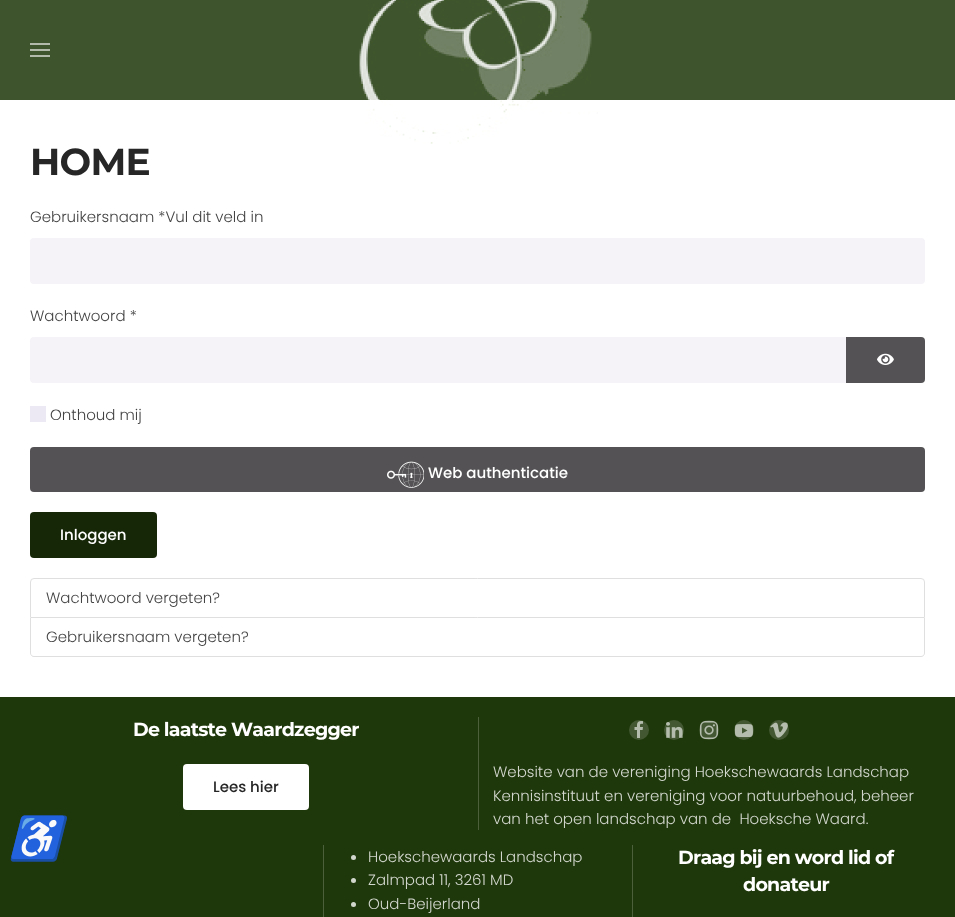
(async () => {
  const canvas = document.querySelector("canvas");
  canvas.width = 955;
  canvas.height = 917;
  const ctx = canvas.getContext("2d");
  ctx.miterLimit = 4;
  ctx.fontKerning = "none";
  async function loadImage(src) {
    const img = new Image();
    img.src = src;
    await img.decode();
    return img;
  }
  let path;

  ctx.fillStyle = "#ffffff";
  ctx.fillRect(0, 0, 955, 917);
  for (const [x, y, w, h, color] of [
    [0, 0, 955, 100, "#3e542d"],
    [30, 43, 20, 2, "#b2bbab"],
    [30, 49, 20, 2, "#b2bbab"],
    [30, 55, 20, 2, "#b2bbab"],
  ]) {
    ctx.fillStyle = color;
    ctx.fillRect(x, y, w, h);
  }
  ctx.drawImage(await loadImage("img/1.png"), 359, 0, 239, 144);
  ctx.fillStyle = "#f5f3f7";
  ctx.beginPath();
  ctx.roundRect(30, 238, 895, 46, 4);
  ctx.fill();
  ctx.beginPath();
  ctx.roundRect(30, 337, 817, 46, [4, 0, 0, 4]);
  ctx.fill();
  ctx.fillStyle = "#545254";
  ctx.beginPath();
  ctx.roundRect(846, 337, 79, 46, [0, 4, 4, 0]);
  ctx.fill();
  ctx.drawImage(await loadImage("img/2.png"), 877, 353, 17, 12);
  ctx.fillStyle = "#ece8f4";
  ctx.fillRect(30, 406, 16, 16);
  ctx.fillStyle = "#545254";
  ctx.beginPath();
  ctx.roundRect(30, 447, 895, 45, 4);
  ctx.fill();
  ctx.drawImage(await loadImage("img/3.png"), 387, 461, 37, 27);
  ctx.fillStyle = "#162708";
  ctx.beginPath();
  ctx.roundRect(30, 512, 127, 46, 4);
  ctx.fill();
  ctx.beginPath();
  ctx.roundRect(30.5, 578.5, 894, 39, [3.5, 3.5, 0, 0]);
  ctx.strokeStyle = "#dfdfdf";
  ctx.stroke();
  ctx.fillStyle = "#dfdfdf";
  path = new Path2D("M30 618H925V653C925 655 923 657 921 657H34C32 657 30 655 30 653ZM31 618H924V653C924 655 923 656 921 656H34C32 656 31 655 31 653Z");
  ctx.fill(path, "evenodd");
  ctx.fillStyle = "#1f380b";
  ctx.fillRect(0, 697, 955, 220);
  ctx.fillStyle = "#ffffff";
  ctx.beginPath();
  ctx.roundRect(183, 764, 126, 46, 4);
  ctx.fill();
  ctx.fillStyle = "#4c603c";
  ctx.fillRect(478, 717, 1, 113);
  ctx.fillStyle = "#435832";
  ctx.beginPath();
  ctx.arc(639, 730, 10, 0, Math.PI * 2);
  ctx.fill();
  ctx.drawImage(await loadImage("img/4.png"), 634, 721, 9, 17);
  ctx.beginPath();
  ctx.arc(674, 730, 10, 0, Math.PI * 2);
  ctx.fill();
  ctx.drawImage(await loadImage("img/5.png"), 666, 722, 17, 16);
  ctx.beginPath();
  ctx.arc(709, 730, 10, 0, Math.PI * 2);
  ctx.fill();
  ctx.drawImage(await loadImage("img/6.png"), 700, 721, 18, 18);
  ctx.beginPath();
  ctx.arc(744, 730, 10, 0, Math.PI * 2);
  ctx.fill();
  ctx.drawImage(await loadImage("img/7.png"), 735, 724, 18, 14);
  ctx.beginPath();
  ctx.arc(779, 730, 10, 0, Math.PI * 2);
  ctx.fill();
  ctx.drawImage(await loadImage("img/8.png"), 770, 722, 18, 16);
  ctx.fillStyle = "#4c603c";
  ctx.fillRect(323, 845, 1, 72);
  ctx.fillStyle = "#d2d7ce";
  ctx.beginPath();
  ctx.arc(353.5, 857.5, 2.5, 0, Math.PI * 2);
  ctx.fill();
  ctx.beginPath();
  ctx.arc(353.5, 880.5, 2.5, 0, Math.PI * 2);
  ctx.fill();
  ctx.beginPath();
  ctx.arc(353.5, 904.5, 2.5, 0, Math.PI * 2);
  ctx.fill();
  ctx.fillStyle = "#4c603c";
  ctx.fillRect(632, 845, 1, 72);
  ctx.letterSpacing = "-0.75px";
  ctx.font = "100 37.5px Montserrat";
  ctx.fillStyle = "#262626";
  ctx.fillText("HOME", 30, 175);
  ctx.letterSpacing = "0px";
  ctx.font = "300 15px Poppins";
  ctx.fillStyle = "#444444";
  for (const [text, x, y] of [
    ["Gebruikersnaam *Vul dit veld in", 30, 222],
    ["Wachtwoord *", 30, 321],
    ["Onthoud mij", 50, 420],
  ]) {
    ctx.fillText(text, x, y);
  }
  ctx.font = "500 15px Poppins";
  ctx.fillStyle = "#ffffff";
  ctx.fillText("Web authenticatie", 428, 478);
  ctx.fillText("Inloggen", 60, 540);
  ctx.font = "300 15px Poppins";
  ctx.fillStyle = "#444444";
  ctx.fillText("Wachtwoord vergeten?", 46, 603);
  ctx.fillText("Gebruikersnaam vergeten?", 46, 642);
  ctx.letterSpacing = "-0.75px";
  ctx.font = "100 19px Montserrat";
  ctx.fillStyle = "#ffffff";
  ctx.fillText("De laatste Waardzegger", 133, 736);
  ctx.letterSpacing = "0px";
  ctx.font = "500 15px Poppins";
  ctx.fillStyle = "#262626";
  ctx.fillText("Lees hier", 213, 792);
  ctx.font = "300 15px Poppins";
  ctx.fillStyle = "#d2d7ce";
  for (const [text, x, y] of [
    ["Website van de vereniging Hoekschewaards Landschap", 493, 777],
    ["Kennisinstituut en vereniging voor natuurbehoud, beheer", 493, 801],
    ["van het open landschap van de  Hoeksche Waard.", 493, 824],
    ["Hoekschewaards Landschap", 368, 862],
    ["Zalmpad 11, 3261 MD", 368, 885],
    ["Oud-Beijerland", 368, 909],
  ]) {
    ctx.fillText(text, x, y);
  }
  ctx.letterSpacing = "-0.75px";
  ctx.font = "100 19px Montserrat";
  ctx.fillStyle = "#ffffff";
  ctx.fillText("Draag bij en word lid of", 678, 864);
  ctx.fillText("donateur", 743, 891);
  ctx.letterSpacing = "-3px";
  ctx.font = "italic 42px Noto Color Emoji";
  ctx.fillText("♿", 9, 853);
})();
